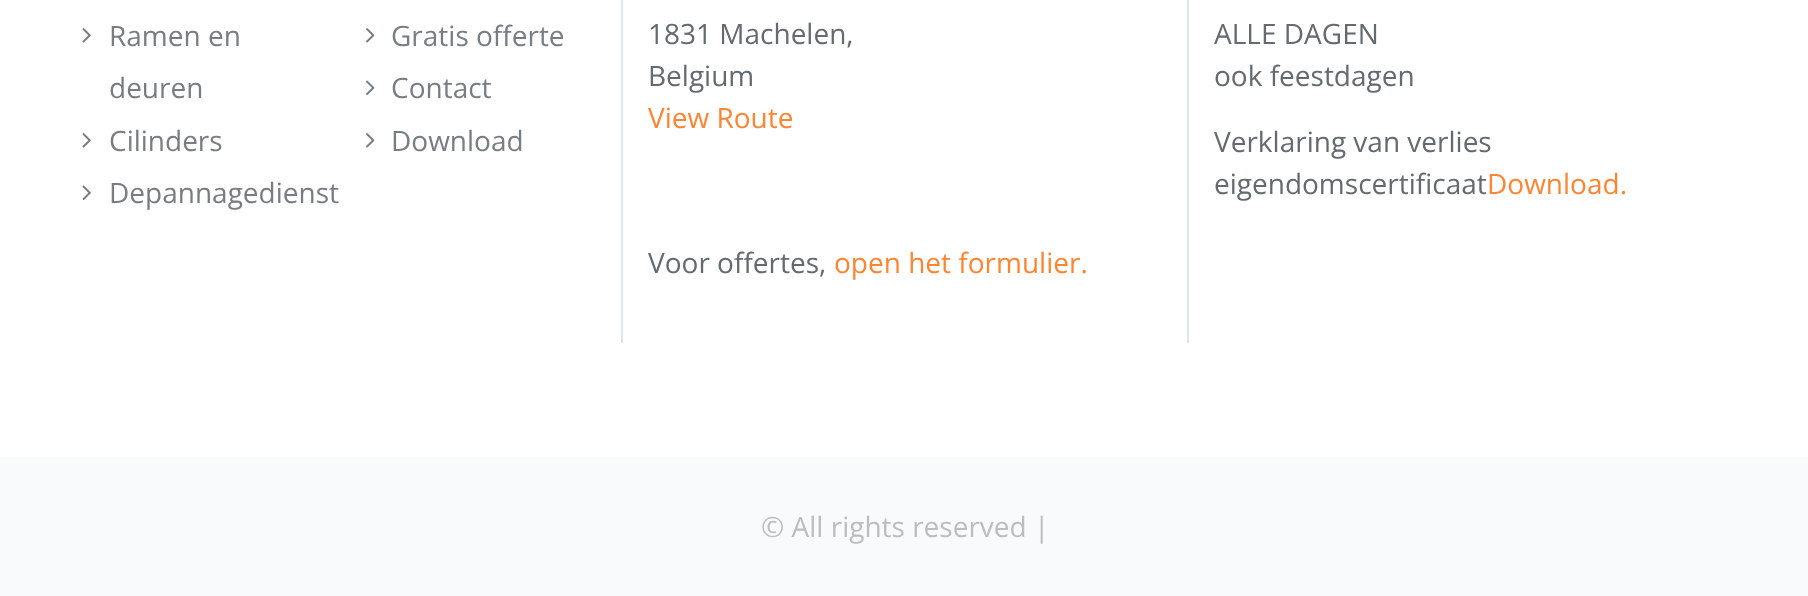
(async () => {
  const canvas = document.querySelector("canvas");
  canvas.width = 1808;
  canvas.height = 596;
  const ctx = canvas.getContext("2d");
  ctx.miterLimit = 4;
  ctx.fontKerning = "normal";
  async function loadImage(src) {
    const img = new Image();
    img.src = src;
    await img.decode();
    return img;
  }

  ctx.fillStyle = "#ffffff";
  ctx.fillRect(0, 0, 1808, 596);
  ctx.drawImage(await loadImage("img/1.png"), 82, 28, 9, 15);
  ctx.drawImage(await loadImage("img/1.png"), 82, 133, 9, 15);
  ctx.drawImage(await loadImage("img/2.png"), 82, 185, 9, 16);
  ctx.drawImage(await loadImage("img/3.png"), 366, 28, 9, 15);
  ctx.drawImage(await loadImage("img/4.png"), 366, 80, 9, 16);
  ctx.drawImage(await loadImage("img/3.png"), 366, 133, 9, 15);
  for (const [x, y, w, h, color] of [
    [621, 0, 2, 343, "#dde6ec"],
    [1187, 0, 2, 343, "#dde6ec"],
    [0, 457, 1808, 139, "#f8fafc"],
  ]) {
    ctx.fillStyle = color;
    ctx.fillRect(x, y, w, h);
  }
  ctx.font = "28px Open Sans";
  ctx.fillStyle = "#777d82";
  for (const [text, x, y] of [
    ["Ramen en", 109, 46],
    ["deuren", 109, 98],
    ["Cilinders", 109, 151],
    ["Depannagedienst", 109, 203],
    ["Gratis offerte", 391, 46],
    ["Contact", 391, 98],
    ["Download", 391, 151],
  ]) {
    ctx.fillText(text, x, y);
  }
  ctx.fillStyle = "#646a6f";
  ctx.fillText("1831 Machelen,", 648, 44);
  ctx.fillText("Belgium", 648, 86);
  ctx.fillStyle = "#ff8533";
  ctx.fillText("View Route", 648, 128);
  ctx.fillStyle = "#646a6f";
  ctx.fillText("Voor offertes,", 648, 273);
  ctx.fillStyle = "#ff8533";
  ctx.fillText("open het formulier.", 834, 273);
  ctx.fillStyle = "#646a6f";
  for (const [text, x, y] of [
    ["ALLE DAGEN", 1214, 44],
    ["ook feestdagen", 1214, 86],
    ["Verklaring van verlies", 1214, 152],
    ["eigendomscertificaat", 1214, 194],
  ]) {
    ctx.fillText(text, x, y);
  }
  ctx.fillStyle = "#ff8533";
  ctx.fillText("Download.", 1487, 194);
  ctx.fillStyle = "#bbbdbf";
  ctx.fillText("© All rights reserved |", 761, 537);
})();
